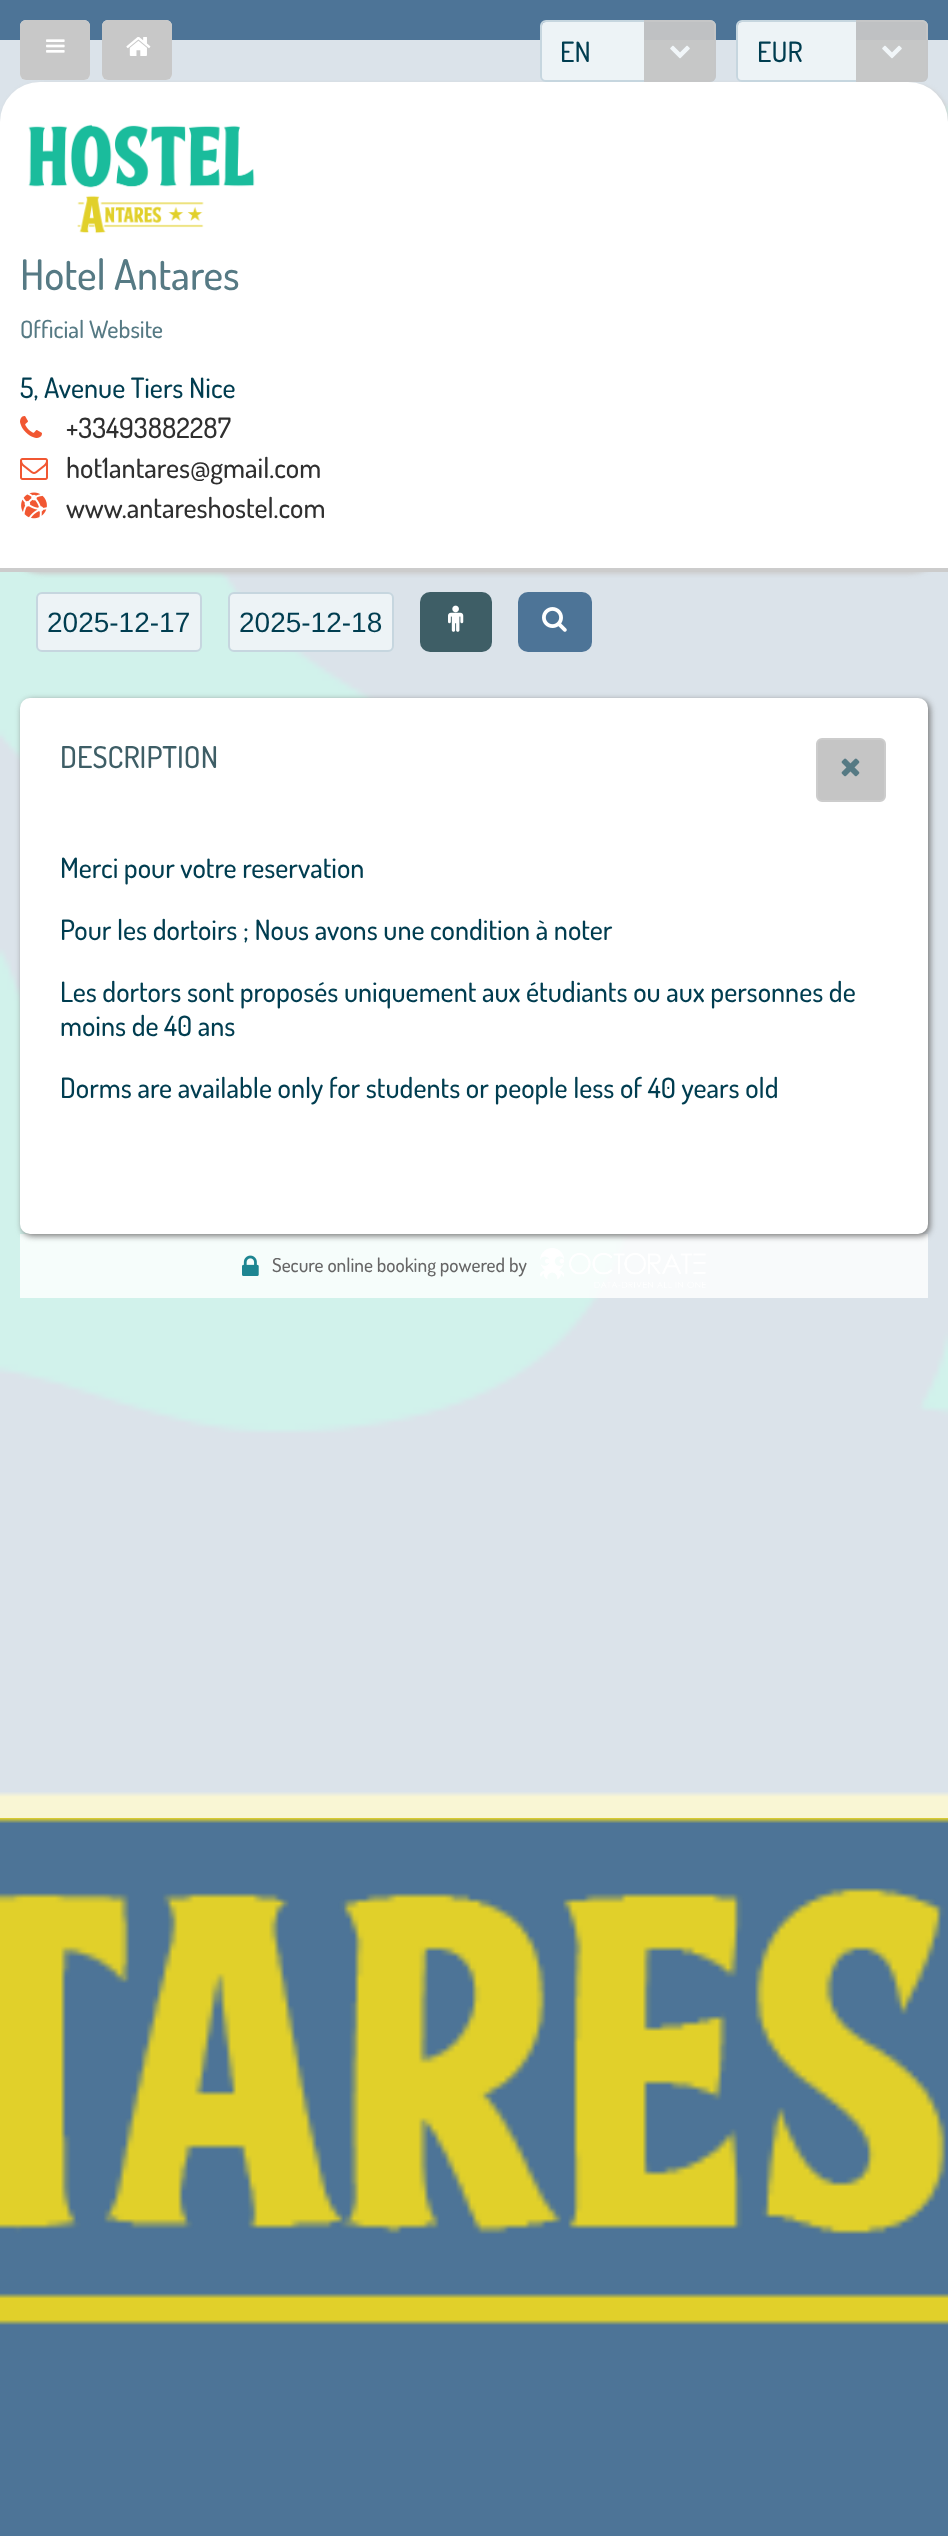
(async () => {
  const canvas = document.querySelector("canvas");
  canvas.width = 948;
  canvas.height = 2536;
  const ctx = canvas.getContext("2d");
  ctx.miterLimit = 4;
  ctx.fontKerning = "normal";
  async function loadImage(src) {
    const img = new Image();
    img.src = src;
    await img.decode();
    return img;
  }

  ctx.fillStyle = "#4d7497";
  ctx.fillRect(0, 0, 948, 2536);
  ctx.drawImage(await loadImage("img/1.png"), 0, 104, 948, 2221);
  ctx.fillStyle = "rgba(255, 255, 255, 0.8)";
  ctx.fillRect(0, 40, 948, 638);
  ctx.fillStyle = "#cccccc";
  ctx.filter = "blur(2px)";
  ctx.beginPath();
  ctx.roundRect(2, 84, 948, 490, 40);
  ctx.fill();
  ctx.filter = "none";
  ctx.fillStyle = "#efefef";
  ctx.beginPath();
  ctx.roundRect(20, 20, 70, 60, 6);
  ctx.fill();
  ctx.fillStyle = "rgba(197, 197, 197, 0.95)";
  ctx.beginPath();
  ctx.roundRect(20, 20, 70, 60, 6);
  ctx.fill();
  ctx.drawImage(await loadImage("img/2.png"), 46, 39, 19, 14);
  ctx.fillStyle = "#efefef";
  ctx.beginPath();
  ctx.roundRect(102, 20, 70, 60, 6);
  ctx.fill();
  ctx.fillStyle = "rgba(197, 197, 197, 0.95)";
  ctx.beginPath();
  ctx.roundRect(102, 20, 70, 60, 6);
  ctx.fill();
  ctx.drawImage(await loadImage("img/3.png"), 126, 37, 25, 19);
  ctx.beginPath();
  ctx.roundRect(541, 21, 174, 60, 5);
  ctx.strokeStyle = "#c6d6df";
  ctx.lineWidth = 2;
  ctx.stroke();
  ctx.fillStyle = "#edf3f6";
  ctx.beginPath();
  ctx.roundRect(542, 22, 102, 58, [4, 0, 0, 4]);
  ctx.fill();
  ctx.fillStyle = "rgba(197, 197, 197, 0.95)";
  ctx.beginPath();
  ctx.roundRect(644, 20, 72, 62, [0, 6, 6, 0]);
  ctx.fill();
  ctx.drawImage(await loadImage("img/4.png"), 670, 45, 20, 14);
  ctx.beginPath();
  ctx.roundRect(737, 21, 190, 60, 5);
  ctx.stroke();
  ctx.fillStyle = "#edf3f6";
  ctx.beginPath();
  ctx.roundRect(738, 22, 118, 58, [4, 0, 0, 4]);
  ctx.fill();
  ctx.fillStyle = "rgba(197, 197, 197, 0.95)";
  ctx.beginPath();
  ctx.roundRect(856, 20, 72, 62, [0, 6, 6, 0]);
  ctx.fill();
  ctx.drawImage(await loadImage("img/4.png"), 882, 45, 20, 14);
  ctx.fillStyle = "#ffffff";
  ctx.beginPath();
  ctx.roundRect(0, 82, 948, 490, [40, 40, 0, 0]);
  ctx.fill();
  ctx.fillStyle = "#cccccc";
  ctx.fillRect(0, 568, 948, 4);
  ctx.drawImage(await loadImage("img/5.png"), 28, 124, 227, 110);
  ctx.drawImage(await loadImage("img/6.png"), 20, 416, 22, 22);
  ctx.drawImage(await loadImage("img/7.png"), 20, 458, 28, 22);
  ctx.drawImage(await loadImage("img/8.png"), 21, 492, 26, 27);
  ctx.fillStyle = "#edf3f6";
  ctx.beginPath();
  ctx.roundRect(37, 593, 164, 58, 5);
  ctx.fill();
  ctx.stroke();
  ctx.beginPath();
  ctx.roundRect(229, 593, 164, 58, 5);
  ctx.fill();
  ctx.stroke();
  ctx.fillStyle = "#3e5e66";
  ctx.beginPath();
  ctx.roundRect(420, 592, 72, 60, 10);
  ctx.fill();
  ctx.drawImage(await loadImage("img/9.png"), 448, 605, 16, 27);
  ctx.fillStyle = "#4d7497";
  ctx.beginPath();
  ctx.roundRect(518, 592, 74, 60, 10);
  ctx.fill();
  ctx.drawImage(await loadImage("img/10.png"), 542, 607, 25, 25);
  ctx.fillStyle = "rgba(255, 255, 255, 0.8)";
  ctx.fillRect(0, 678, 948, 1140);
  ctx.fillRect(20, 1234, 908, 64);
  ctx.fillStyle = "#777777";
  ctx.filter = "blur(3px)";
  ctx.beginPath();
  ctx.roundRect(22, 700, 908, 536, 10);
  ctx.fill();
  ctx.filter = "none";
  ctx.fillStyle = "#ffffff";
  ctx.beginPath();
  ctx.roundRect(20, 698, 908, 536, 10);
  ctx.fill();
  ctx.fillStyle = "#c5c5c5";
  ctx.beginPath();
  ctx.roundRect(817, 739, 68, 62, 5);
  ctx.fill();
  ctx.strokeStyle = "#cccccc";
  ctx.stroke();
  ctx.drawImage(await loadImage("img/11.png"), 841, 758, 19, 19);
  ctx.drawImage(await loadImage("img/12.png"), 242, 1255, 17, 21);
  ctx.drawImage(await loadImage("img/13.png"), 540, 1248, 166, 40);
  ctx.font = "500 28px Dosis";
  ctx.fillStyle = "#003d50";
  ctx.fillText("EN", 560, 62);
  ctx.fillText("EUR", 757, 62);
  ctx.font = "500 42px Dosis";
  ctx.fillStyle = "#567a84";
  ctx.fillText("Hotel Antares", 20, 290);
  ctx.font = "500 24px Dosis";
  ctx.fillText("Official Website", 20, 338);
  ctx.font = "500 28px Dosis";
  ctx.fillStyle = "#003d50";
  ctx.fillText("5, Avenue Tiers Nice", 20, 398);
  ctx.fillStyle = "#2f2f2f";
  for (const [text, x, y] of [
    ["+33493882287", 66, 438],
    ["hot1antares@gmail.com", 66, 478],
    ["www.antareshostel.com", 66, 518],
  ]) {
    ctx.fillText(text, x, y);
  }
  ctx.font = "28px Liberation Sans";
  ctx.fillStyle = "#003d50";
  ctx.fillText("2025-12-17", 47, 632);
  ctx.fillText("2025-12-18", 239, 632);
  ctx.font = "500 30px Dosis";
  ctx.fillStyle = "#3e5e66";
  ctx.fillText("DESCRIPTION", 60, 768);
  ctx.font = "500 28px Dosis";
  ctx.fillStyle = "#003d50";
  for (const [text, x, y] of [
    ["Merci pour votre reservation", 60, 878],
    ["Pour les dortoirs ; Nous avons une condition à noter", 60, 940],
    ["Les dortors sont proposés uniquement aux étudiants ou aux personnes de", 60, 1002],
    ["moins de 40 ans", 60, 1036],
    ["Dorms are available only for students or people less of 40 years old", 60, 1098],
  ]) {
    ctx.fillText(text, x, y);
  }
  ctx.font = "500 19.25px Dosis";
  ctx.fillStyle = "#666666";
  ctx.fillText("Secure online booking powered by", 272, 1272);
})();
